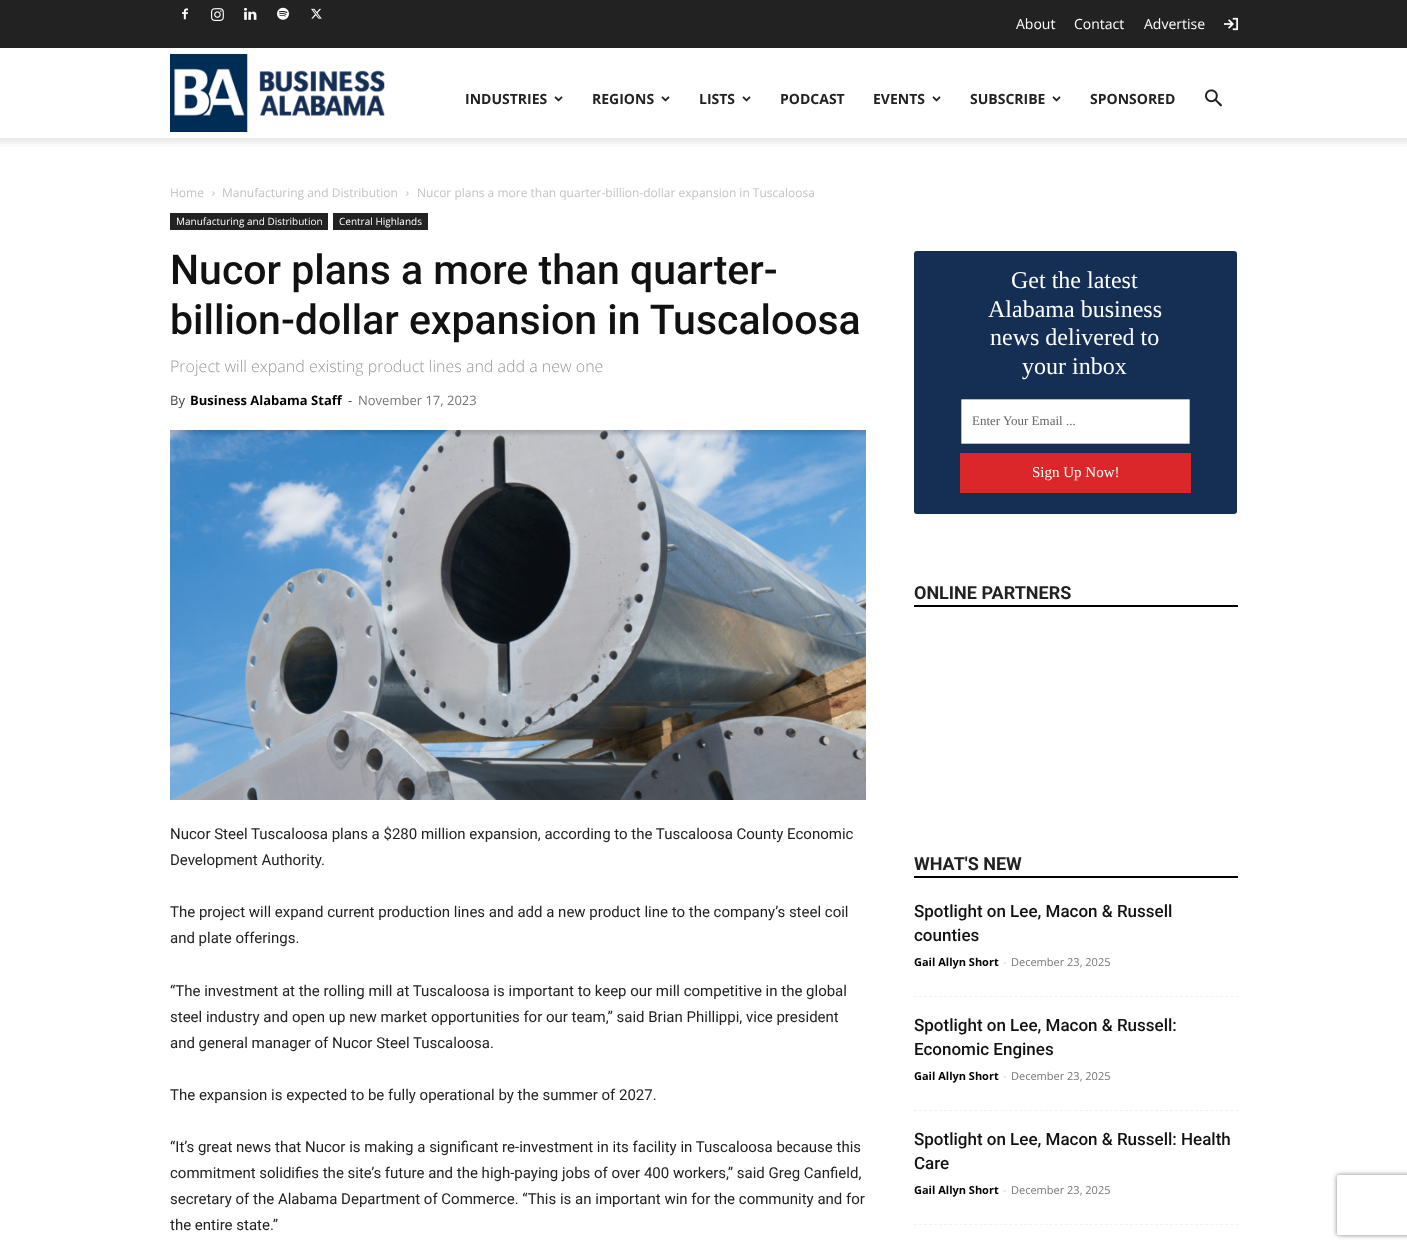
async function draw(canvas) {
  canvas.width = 1407
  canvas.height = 1249
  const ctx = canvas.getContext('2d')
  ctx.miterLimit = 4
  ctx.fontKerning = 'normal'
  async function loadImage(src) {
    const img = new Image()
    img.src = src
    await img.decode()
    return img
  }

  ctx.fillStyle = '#fff'
  ctx.fillRect(0, 0, 1407, 1249)
  ctx.fillStyle = '#222'
  ctx.fillRect(0, 0, 1407, 48)
  ctx.drawImage(await loadImage('image0.png'), 182, 8, 6, 12)
  ctx.drawImage(await loadImage('image1.png'), 211, 8, 13, 13)
  ctx.drawImage(await loadImage('image2.png'), 244, 7, 13, 13)
  ctx.drawImage(await loadImage('image3.png'), 277, 7, 12, 13)
  ctx.drawImage(await loadImage('image4.png'), 311, 8, 11, 11)
  ctx.font = '14px Open Sans'
  ctx.fillStyle = '#fff'
  ctx.fillText('About', 1016, 29)
  ctx.fillText('Contact', 1074, 29)
  ctx.fillText('Advertise', 1144, 29)
  ctx.drawImage(await loadImage('image5.png'), 1224, 17, 14, 14)
  ctx.drawImage(await loadImage('image6.png'), 170, 54, 215, 78)
  ctx.font = 'bold 14px Open Sans'
  ctx.fillStyle = '#222'
  ctx.fillText('INDUSTRIES', 465, 104)
  ctx.drawImage(await loadImage('image7.png'), 554, 96, 9, 6)
  ctx.fillText('REGIONS', 592, 104)
  ctx.drawImage(await loadImage('image7.png'), 661, 96, 9, 6)
  ctx.fillText('LISTS', 699, 104)
  ctx.drawImage(await loadImage('image7.png'), 742, 96, 9, 6)
  ctx.fillText('PODCAST', 780, 104)
  ctx.fillText('EVENTS', 873, 104)
  ctx.drawImage(await loadImage('image7.png'), 932, 96, 9, 6)
  ctx.fillText('SUBSCRIBE', 970, 104)
  ctx.drawImage(await loadImage('image7.png'), 1052, 96, 9, 6)
  ctx.fillText('SPONSORED', 1090, 104)
  ctx.drawImage(await loadImage('image8.png'), 1205, 89, 17, 18)
  ctx.drawImage(await loadImage('image9.png'), 0, 138, 1407, 9)
  ctx.font = '12px Open Sans'
  ctx.fillStyle = '#c3c3c3'
  ctx.fillText('Home', 170, 197)
  ctx.drawImage(await loadImage('image10.png'), 212, 191, 3, 5)
  ctx.fillText('Manufacturing and Distribution', 222, 197)
  ctx.drawImage(await loadImage('image10.png'), 406, 191, 3, 5)
  ctx.fillText('Nucor plans a more than quarter-billion-dollar expansion in Tuscaloosa', 417, 197)
  ctx.fillStyle = '#222'
  ctx.fillRect(170, 213, 158, 17)
  ctx.font = '10px Open Sans'
  ctx.fillStyle = '#fff'
  ctx.fillText('Manufacturing and Distribution', 176, 225)
  ctx.fillStyle = '#222'
  ctx.fillRect(333, 213, 95, 17)
  ctx.fillStyle = '#fff'
  ctx.fillText('Central Highlands', 339, 225)
  ctx.font = '500 41px Roboto'
  ctx.fillStyle = '#111'
  ctx.fillText('Nucor plans a more than quarter-', 170, 284)
  ctx.fillText('billion-dollar expansion in Tuscaloosa', 170, 334)
  ctx.font = '300 16px Open Sans'
  ctx.fillStyle = '#999'
  ctx.fillText('Project will expand existing product lines and add a new one', 170, 372)
  ctx.font = '13px Open Sans'
  ctx.fillStyle = '#444'
  ctx.fillText('By', 170, 405)
  ctx.font = 'bold 13px Open Sans'
  ctx.fillStyle = '#000'
  ctx.fillText('Business Alabama Staff', 190, 405)
  ctx.font = '13px Open Sans'
  ctx.fillStyle = '#444'
  ctx.fillText('-', 348, 405)
  ctx.fillStyle = '#767676'
  ctx.fillText('November 17, 2023', 358, 405)
  ctx.drawImage(await loadImage('image11.png'), 170, 430, 696, 370)
  ctx.font = '15px Roboto'
  ctx.fillStyle = '#222'
  ctx.fillText('Nucor Steel Tuscaloosa plans a $280 million expansion, according to the Tuscaloosa County Economic', 170, 839)
  ctx.fillText('Development Authority.', 170, 865)
  ctx.fillText('The project will expand current production lines and add a new product line to the company’s steel coil', 170, 917)
  ctx.fillText('and plate offerings.', 170, 943)
  ctx.fillText('“The investment at the rolling mill at Tuscaloosa is important to keep our mill competitive in the global', 170, 996)
  ctx.fillText('steel industry and open up new market opportunities for our team,” said Brian Phillippi, vice president', 170, 1022)
  ctx.fillText('and general manager of Nucor Steel Tuscaloosa.', 170, 1048)
  ctx.fillText('The expansion is expected to be fully operational by the summer of 2027.', 170, 1100)
  ctx.fillText('“It’s great news that Nucor is making a significant re‐investment in its facility in Tuscaloosa because this', 170, 1152)
  ctx.fillText('commitment solidifies the site’s future and the high‐paying jobs of over 400 workers,” said Greg Canfield,', 170, 1178)
  ctx.fillText('secretary of the Alabama Department of Commerce. “This is an important win for the community and for', 170, 1204)
  ctx.fillText('the entire state.”', 170, 1230)
  ctx.fillStyle = '#152e54'
  ctx.beginPath()
  ctx.roundRect(914, 251, 323, 263, 3)
  ctx.fill()
  ctx.font = '24px Liberation Serif'
  ctx.fillStyle = '#fff'
  ctx.fillText('Get the latest', 1011, 288)
  ctx.fillText('Alabama business', 988, 317)
  ctx.fillText('news delivered to', 990, 345)
  ctx.fillText('your inbox', 1022, 374)
  ctx.beginPath()
  ctx.roundRect(961.5, 399.5, 228, 44, 0.5)
  ctx.fill()
  ctx.strokeStyle = '#bbb'
  ctx.stroke()
  ctx.font = '13px Liberation Serif'
  ctx.fillStyle = '#666'
  ctx.fillText('Enter Your Email ...', 972, 425)
  ctx.fillStyle = '#db272a'
  ctx.fillRect(960, 453, 231, 40)
  ctx.font = '15px Liberation Serif'
  ctx.fillStyle = '#fff'
  ctx.fillText('Sign Up Now!', 1032, 477)
  ctx.fillStyle = '#000'
  ctx.fillRect(914, 605, 324, 2)
  ctx.font = 'bold 18px Roboto'
  ctx.fillStyle = '#222'
  ctx.fillText('ONLINE PARTNERS', 914, 599)
  ctx.fillStyle = '#000'
  ctx.fillRect(914, 876, 324, 2)
  ctx.fillStyle = '#222'
  ctx.fillText('WHAT\'S NEW', 914, 870)
  ctx.beginPath()
  ctx.moveTo(914, 996.5)
  ctx.lineTo(1238, 996.5)
  ctx.strokeStyle = '#f2f2f2'
  ctx.setLineDash([3, 2.02])
  ctx.stroke()
  ctx.font = '500 17px Roboto'
  ctx.fillStyle = '#111'
  ctx.fillText('Spotlight on Lee, Macon & Russell', 914, 917)
  ctx.fillText('counties', 914, 941)
  ctx.font = 'bold 11px Open Sans'
  ctx.fillStyle = '#000'
  ctx.fillText('Gail Allyn Short', 914, 966)
  ctx.font = '11px Open Sans'
  ctx.fillStyle = '#ccc'
  ctx.fillText('-', 1003, 966)
  ctx.fillStyle = '#767676'
  ctx.fillText('December 23, 2025', 1011, 966)
  ctx.beginPath()
  ctx.moveTo(914, 1110.5)
  ctx.lineTo(1238, 1110.5)
  ctx.stroke()
  ctx.font = '500 17px Roboto'
  ctx.fillStyle = '#111'
  ctx.fillText('Spotlight on Lee, Macon & Russell:', 914, 1031)
  ctx.fillText('Economic Engines', 914, 1055)
  ctx.font = 'bold 11px Open Sans'
  ctx.fillStyle = '#000'
  ctx.fillText('Gail Allyn Short', 914, 1080)
  ctx.font = '11px Open Sans'
  ctx.fillStyle = '#ccc'
  ctx.fillText('-', 1003, 1080)
  ctx.fillStyle = '#767676'
  ctx.fillText('December 23, 2025', 1011, 1080)
  ctx.beginPath()
  ctx.moveTo(914, 1224.5)
  ctx.lineTo(1238, 1224.5)
  ctx.stroke()
  ctx.font = '500 17px Roboto'
  ctx.fillStyle = '#111'
  ctx.fillText('Spotlight on Lee, Macon & Russell: Health', 914, 1145)
  ctx.fillText('Care', 914, 1169)
  ctx.font = 'bold 11px Open Sans'
  ctx.fillStyle = '#000'
  ctx.fillText('Gail Allyn Short', 914, 1194)
  ctx.font = '11px Open Sans'
  ctx.fillStyle = '#ccc'
  ctx.fillText('-', 1003, 1194)
  ctx.fillStyle = '#767676'
  ctx.fillText('December 23, 2025', 1011, 1194)
  ctx.save()
  ctx.beginPath()
  ctx.moveTo(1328, 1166)
  ctx.lineTo(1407, 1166)
  ctx.lineTo(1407, 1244)
  ctx.lineTo(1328, 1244)
  ctx.closePath()
  ctx.moveTo(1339, 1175)
  ctx.lineTo(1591, 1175)
  ctx.bezierCurveTo(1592, 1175, 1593, 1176, 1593, 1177)
  ctx.lineTo(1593, 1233)
  ctx.bezierCurveTo(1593, 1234, 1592, 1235, 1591, 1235)
  ctx.lineTo(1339, 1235)
  ctx.bezierCurveTo(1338, 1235, 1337, 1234, 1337, 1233)
  ctx.lineTo(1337, 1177)
  ctx.bezierCurveTo(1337, 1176, 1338, 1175, 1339, 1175)
  ctx.closePath()
  ctx.clip('evenodd')
  ctx.fillStyle = '#808080'
  ctx.filter = 'blur(2.5px)'
  ctx.beginPath()
  ctx.roundRect(1337, 1175, 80, 60, 2)
  ctx.fill()
  ctx.filter = 'none'
  ctx.restore()
}

draw(document.querySelector('canvas'))
